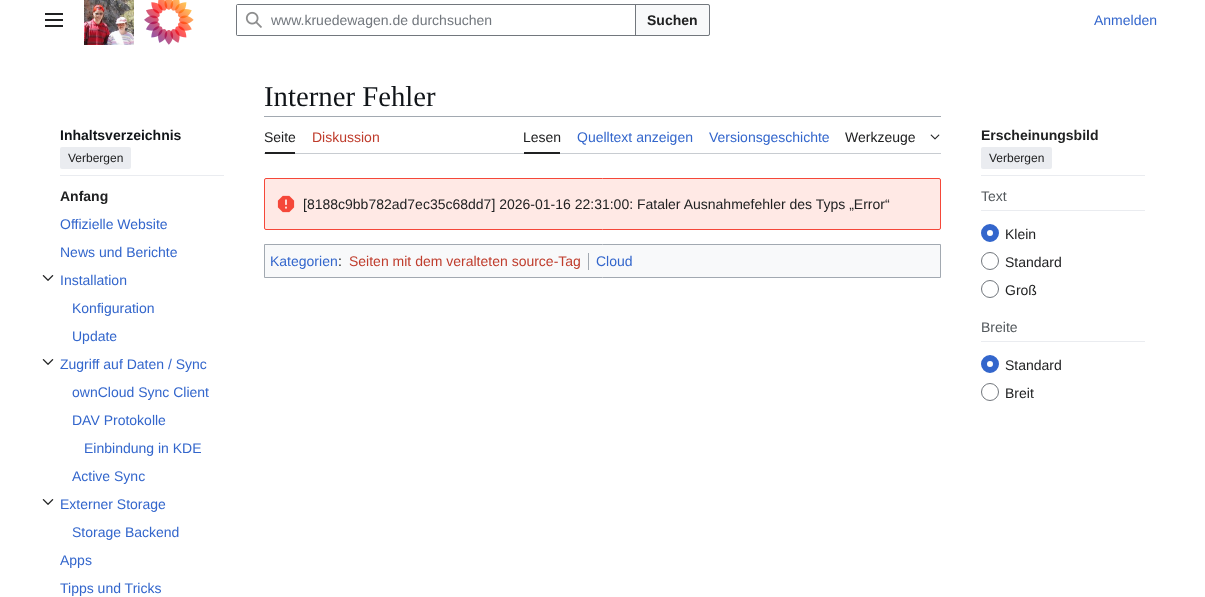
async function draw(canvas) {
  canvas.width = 1205
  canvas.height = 597
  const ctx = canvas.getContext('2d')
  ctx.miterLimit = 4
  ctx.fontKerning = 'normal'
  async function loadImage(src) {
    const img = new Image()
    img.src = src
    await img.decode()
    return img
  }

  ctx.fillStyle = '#fff'
  ctx.fillRect(0, 0, 1205, 597)
  ctx.drawImage(await loadImage('image0.png'), 45, 13, 18, 14)
  ctx.drawImage(await loadImage('image1.png'), 84, 0, 50, 45)
  ctx.drawImage(await loadImage('image2.png'), 144, 0, 50, 45)
  ctx.beginPath()
  ctx.roundRect(236.5, 4.5, 473, 31, 1.5)
  ctx.strokeStyle = '#a2a9b1'
  ctx.stroke()
  ctx.fillStyle = '#f8f9fa'
  ctx.beginPath()
  ctx.roundRect(635.5, 4.5, 74, 31, [0, 1.5, 1.5, 0])
  ctx.fill()
  ctx.strokeStyle = '#72777d'
  ctx.stroke()
  ctx.fillStyle = '#fff'
  ctx.beginPath()
  ctx.roundRect(236, 4, 400, 32, [2, 0, 0, 2])
  ctx.fill()
  ctx.fillStyle = '#72777d'
  ctx.beginPath()
  ctx.moveTo(238, 4)
  ctx.bezierCurveTo(237, 4, 236, 5, 236, 6)
  ctx.lineTo(236, 34)
  ctx.bezierCurveTo(236, 35, 237, 36, 238, 36)
  ctx.lineTo(636, 36)
  ctx.lineTo(636, 4)
  ctx.closePath()
  ctx.moveTo(237, 5)
  ctx.lineTo(237, 35)
  ctx.lineTo(635, 35)
  ctx.lineTo(635, 5)
  ctx.closePath()
  ctx.fill('evenodd')
  ctx.drawImage(await loadImage('image3.png'), 245, 11, 17, 17)
  ctx.font = '14px Liberation Sans'
  ctx.fillText('www.kruedewagen.de durchsuchen', 271, 25)
  ctx.font = 'bold 14px Liberation Sans'
  ctx.fillStyle = '#202122'
  ctx.fillText('Suchen', 647, 25)
  ctx.font = '14px Liberation Sans'
  ctx.fillStyle = '#36c'
  ctx.fillText('Anmelden', 1094, 25)
  ctx.fillStyle = '#eaecf0'
  ctx.fillRect(60, 175, 164, 1)
  ctx.font = 'bold 14px Liberation Sans'
  ctx.fillStyle = '#101418'
  ctx.fillText('Inhaltsverzeichnis', 60, 140)
  ctx.fillStyle = '#eaecf0'
  ctx.beginPath()
  ctx.roundRect(60, 147, 71, 22, 2)
  ctx.fill()
  ctx.font = '12px Liberation Sans'
  ctx.fillStyle = '#202122'
  ctx.fillText('Verbergen', 68, 162)
  ctx.font = 'bold 14px Liberation Sans'
  ctx.fillText('Anfang', 60, 201)
  ctx.font = '14px Liberation Sans'
  ctx.fillStyle = '#36c'
  ctx.fillText('Offizielle Website', 60, 229)
  ctx.fillText('News und Berichte', 60, 257)
  ctx.drawImage(await loadImage('image4.png'), 42, 275, 12, 6)
  ctx.fillText('Installation', 60, 285)
  ctx.fillText('Konfiguration', 72, 313)
  ctx.fillText('Update', 72, 341)
  ctx.drawImage(await loadImage('image4.png'), 42, 359, 12, 6)
  ctx.fillText('Zugriff auf Daten / Sync', 60, 369)
  ctx.fillText('ownCloud Sync Client', 72, 397)
  ctx.fillText('DAV Protokolle', 72, 425)
  ctx.fillText('Einbindung in KDE', 84, 453)
  ctx.fillText('Active Sync', 72, 481)
  ctx.drawImage(await loadImage('image4.png'), 42, 499, 12, 6)
  ctx.fillText('Externer Storage', 60, 509)
  ctx.fillText('Storage Backend', 72, 537)
  ctx.fillText('Apps', 60, 565)
  ctx.fillText('Tipps und Tricks', 60, 593)
  ctx.font = '28.75px Liberation Serif'
  ctx.fillStyle = '#101418'
  ctx.fillText('Interner Fehler', 264, 106)
  ctx.fillStyle = '#a2a9b1'
  ctx.fillRect(264, 116, 677, 1)
  ctx.fillStyle = '#c8ccd1'
  ctx.fillRect(264, 153, 677, 1)
  ctx.fillStyle = '#202122'
  ctx.fillRect(265, 152, 30, 2)
  ctx.font = '14px Liberation Sans'
  ctx.fillText('Seite', 264, 142)
  ctx.fillStyle = '#bf3c2c'
  ctx.fillText('Diskussion', 312, 142)
  ctx.fillStyle = '#202122'
  ctx.fillRect(524, 152, 36, 2)
  ctx.fillText('Lesen', 523, 142)
  ctx.fillStyle = '#36c'
  ctx.fillText('Quelltext anzeigen', 577, 142)
  ctx.fillText('Versionsgeschichte', 709, 142)
  ctx.fillStyle = '#202122'
  ctx.fillText('Werkzeuge', 845, 142)
  ctx.drawImage(await loadImage('image5.png'), 930, 134, 10, 6)
  ctx.fillStyle = '#eaecf0'
  ctx.fillRect(981, 175, 164, 1)
  ctx.font = 'bold 14px Liberation Sans'
  ctx.fillStyle = '#202122'
  ctx.fillText('Erscheinungsbild', 981, 140)
  ctx.fillStyle = '#eaecf0'
  ctx.beginPath()
  ctx.roundRect(981, 147, 71, 22, 2)
  ctx.fill()
  ctx.font = '12px Liberation Sans'
  ctx.fillStyle = '#202122'
  ctx.fillText('Verbergen', 989, 162)
  ctx.fillStyle = '#eaecf0'
  ctx.fillRect(981, 210, 164, 1)
  ctx.font = '14px Liberation Sans'
  ctx.fillStyle = '#54595d'
  ctx.fillText('Text', 981, 201)
  ctx.beginPath()
  ctx.arc(990, 233, 6, 0, 2 * Math.PI)
  ctx.strokeStyle = '#36c'
  ctx.lineWidth = 6
  ctx.stroke()
  ctx.fillStyle = '#202122'
  ctx.fillText('Klein', 1005, 239)
  ctx.beginPath()
  ctx.arc(990, 261, 8.5, 0, 2 * Math.PI)
  ctx.strokeStyle = '#72777d'
  ctx.lineWidth = 1
  ctx.stroke()
  ctx.fillText('Standard', 1005, 267)
  ctx.beginPath()
  ctx.arc(990, 289, 8.5, 0, 2 * Math.PI)
  ctx.stroke()
  ctx.fillText('Groß', 1005, 295)
  ctx.fillStyle = '#eaecf0'
  ctx.fillRect(981, 341, 164, 1)
  ctx.fillStyle = '#54595d'
  ctx.fillText('Breite', 981, 332)
  ctx.beginPath()
  ctx.arc(990, 364, 6, 0, 2 * Math.PI)
  ctx.strokeStyle = '#36c'
  ctx.lineWidth = 6
  ctx.stroke()
  ctx.fillStyle = '#202122'
  ctx.fillText('Standard', 1005, 370)
  ctx.beginPath()
  ctx.arc(990, 392, 8.5, 0, 2 * Math.PI)
  ctx.strokeStyle = '#72777d'
  ctx.lineWidth = 1
  ctx.stroke()
  ctx.fillText('Breit', 1005, 398)
  ctx.fillStyle = '#ffe9e5'
  ctx.beginPath()
  ctx.roundRect(264.5, 178.5, 676, 51, 1.5)
  ctx.fill()
  ctx.strokeStyle = '#f54739'
  ctx.stroke()
  ctx.drawImage(await loadImage('image6.png'), 277, 195, 18, 18)
  ctx.fillStyle = '#202122'
  ctx.fillText('[8188c9bb782ad7ec35c68dd7] 2026-01-16 22:31:00: Fataler Ausnahmefehler des Typs „Error“', 303, 209)
  ctx.fillStyle = '#f8f9fa'
  ctx.beginPath()
  ctx.rect(264.5, 244.5, 676, 33)
  ctx.fill()
  ctx.strokeStyle = '#a2a9b1'
  ctx.stroke()
  ctx.fillStyle = '#36c'
  ctx.fillText('Kategorien', 270, 266)
  ctx.fillStyle = '#202122'
  ctx.fillText(':', 338, 266)
  ctx.fillStyle = '#bf3c2c'
  ctx.fillText('Seiten mit dem veralteten source-Tag', 349, 266)
  ctx.fillStyle = '#a2a9b1'
  ctx.fillRect(588, 253, 1, 17)
  ctx.fillStyle = '#36c'
  ctx.fillText('Cloud', 596, 266)
}

draw(document.querySelector('canvas'))
